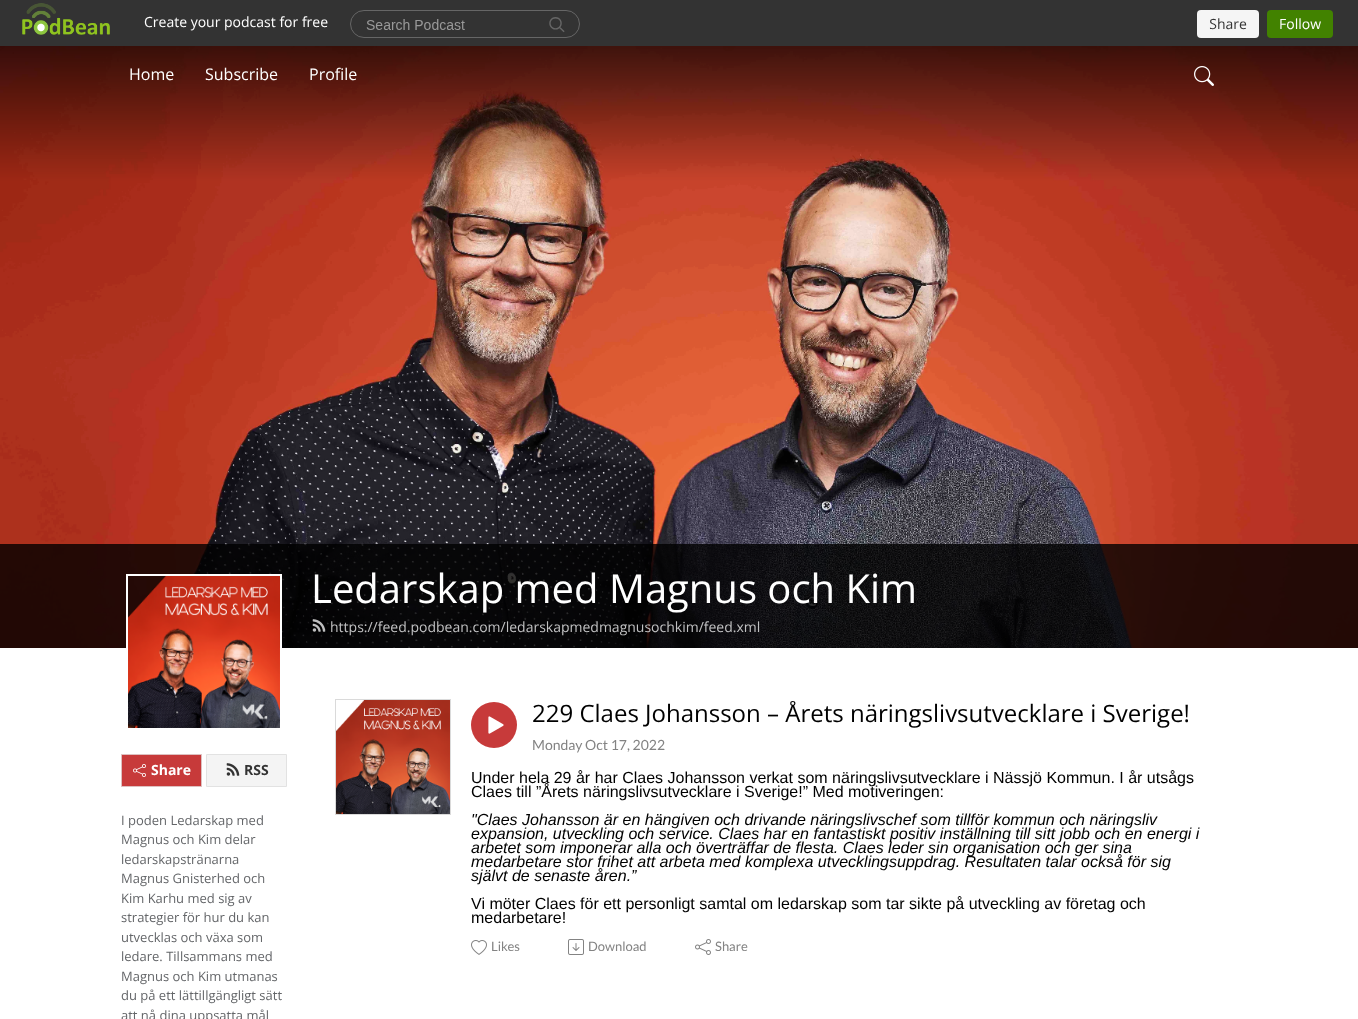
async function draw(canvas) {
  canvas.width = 1358
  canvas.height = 1019
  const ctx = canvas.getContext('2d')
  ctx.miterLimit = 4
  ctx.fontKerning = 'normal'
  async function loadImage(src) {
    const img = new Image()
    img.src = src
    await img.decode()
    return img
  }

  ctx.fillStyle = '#fff'
  ctx.fillRect(0, 0, 1358, 1019)
  ctx.fillStyle = '#333'
  ctx.fillRect(0, 0, 1358, 46)
  ctx.drawImage(await loadImage('image0.png'), 22, 3, 1311, 35)
  ctx.drawImage(await loadImage('image2.png'), 0, 46, 1358, 602)
  ctx.font = '16px Open Sans'
  ctx.fillStyle = '#fff'
  ctx.fillText('Home', 129, 80)
  ctx.fillText('Subscribe', 205, 80)
  ctx.fillText('Profile', 309, 80)
  ctx.drawImage(await loadImage('image1.png'), 1194, 66, 20, 20)
  ctx.fillStyle = '#000000cc'
  ctx.fillRect(0, 544, 1358, 104)
  ctx.font = '40px Open Sans'
  ctx.fillStyle = '#fff'
  ctx.fillText('Ledarskap med Magnus och Kim', 311, 603)
  ctx.drawImage(await loadImage('image3.png'), 312, 619, 14, 13)
  ctx.font = '14px Open Sans'
  ctx.fillStyle = '#c1c1c2'
  ctx.fillText('https://feed.podbean.com/ledarskapmedmagnusochkim/feed.xml', 330, 632)
  ctx.strokeStyle = '#fff'
  ctx.lineWidth = 2
  ctx.strokeRect(127, 575, 154, 154)
  ctx.drawImage(await loadImage('image4.png'), 128, 576, 152, 152)
  ctx.fillStyle = '#c73a3a'
  ctx.beginPath()
  ctx.rect(121.5, 754.5, 80, 32)
  ctx.fill()
  ctx.strokeStyle = '#ddc0c0'
  ctx.lineWidth = 1
  ctx.stroke()
  ctx.drawImage(await loadImage('image5.png'), 133, 764, 13, 13)
  ctx.font = 'bold 14px Open Sans'
  ctx.fillStyle = '#fff'
  ctx.fillText('Share', 151, 775)
  ctx.fillStyle = '#f4f4f4'
  ctx.beginPath()
  ctx.rect(206.5, 754.5, 80, 32)
  ctx.fill()
  ctx.strokeStyle = '#e2e2e2'
  ctx.stroke()
  ctx.drawImage(await loadImage('image6.png'), 226, 763, 14, 13)
  ctx.fillStyle = '#333'
  ctx.fillText('RSS', 244, 775)
  ctx.font = '13px Open Sans'
  ctx.fillStyle = '#646669'
  ctx.fillText('I poden Ledarskap med', 121, 825)
  ctx.fillText('Magnus och Kim delar', 121, 844)
  ctx.fillText('ledarskapstränarna', 121, 864)
  ctx.fillText('Magnus Gnisterhed och', 121, 883)
  ctx.fillText('Kim Karhu med sig av', 121, 903)
  ctx.fillText('strategier för hur du kan', 121, 922)
  ctx.fillText('utvecklas och växa som', 121, 942)
  ctx.fillText('ledare. Tillsammans med', 121, 961)
  ctx.fillText('Magnus och Kim utmanas', 121, 981)
  ctx.fillText('du på ett lättillgängligt sätt', 121, 1000)
  ctx.fillText('att nå dina uppsatta mål', 121, 1020)
  ctx.strokeStyle = '#dadada'
  ctx.strokeRect(335.5, 699.5, 115, 115)
  ctx.drawImage(await loadImage('image7.png'), 336, 700, 114, 114)
  ctx.fillStyle = '#c73a3a'
  ctx.beginPath()
  ctx.arc(494, 725, 23, 0, 2 * Math.PI)
  ctx.fill()
  ctx.drawImage(await loadImage('image8.png'), 488, 716, 16, 18)
  ctx.font = '24px Open Sans'
  ctx.fillStyle = '#000'
  ctx.fillText('229 Claes Johansson – Årets näringslivsutvecklare i Sverige!', 532, 722)
  ctx.font = '14px Lato'
  ctx.fillStyle = '#838383'
  ctx.fillText('Monday Oct 17, 2022', 532, 750)
  ctx.font = '16px Liberation Sans'
  ctx.fillStyle = '#000'
  ctx.fillText('Under hela 29 år har Claes Johansson verkat som näringslivsutvecklare i Nässjö Kommun. I år utsågs', 471, 783)
  ctx.fillText('Claes till ”Årets näringslivsutvecklare i Sverige!” Med motiveringen:', 471, 797)
  ctx.font = 'italic 16px Liberation Sans'
  ctx.fillText('"Claes Johansson är en hängiven och drivande näringslivschef som tillför kommun och näringsliv', 471, 825)
  ctx.fillText('expansion, utveckling och service. Claes har en fantastiskt positiv inställning till sitt jobb och en energi i', 471, 839)
  ctx.fillText('arbetet som imponerar alla och överträffar de flesta. Claes leder sin organisation och ger sina', 471, 853)
  ctx.fillText('medarbetare stor frihet att arbeta med komplexa utvecklingsuppdrag. Resultaten talar också för sig', 471, 867)
  ctx.fillText('självt de senaste åren.”', 471, 881)
  ctx.font = '16px Liberation Sans'
  ctx.fillText('Vi möter Claes för ett personligt samtal om ledarskap som tar sikte på utveckling av företag och', 471, 909)
  ctx.fillText('medarbetare!', 471, 923)
  ctx.drawImage(await loadImage('image9.png'), 471, 940, 16, 15)
  ctx.font = '13px Lato'
  ctx.fillStyle = '#838383'
  ctx.fillText('Likes', 491, 951)
  ctx.drawImage(await loadImage('image10.png'), 568, 939, 16, 16)
  ctx.fillText('Download', 588, 951)
  ctx.drawImage(await loadImage('image11.png'), 695, 939, 16, 16)
  ctx.fillText('Share', 715, 951)
}

draw(document.querySelector('canvas'))
